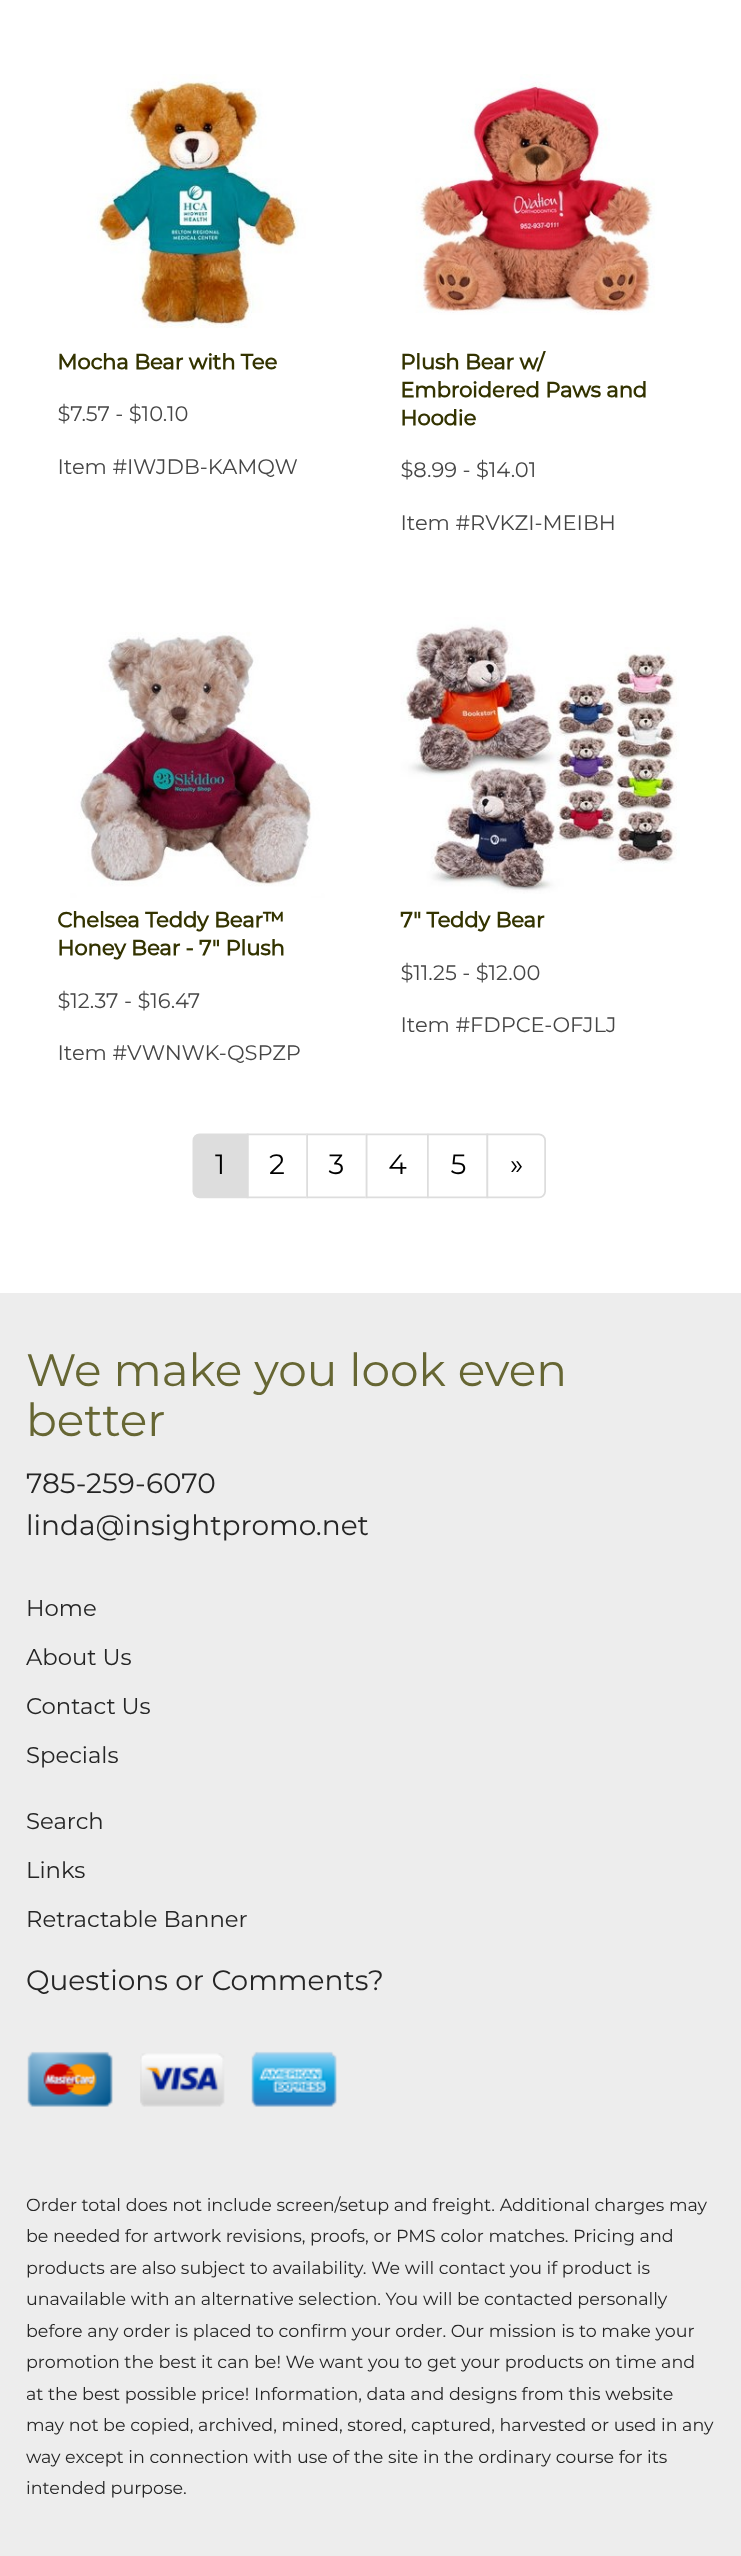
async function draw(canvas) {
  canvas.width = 741
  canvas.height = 2556
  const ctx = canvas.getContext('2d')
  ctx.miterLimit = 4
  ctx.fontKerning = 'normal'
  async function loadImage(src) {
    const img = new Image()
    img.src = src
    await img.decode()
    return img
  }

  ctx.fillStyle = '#ededed'
  ctx.fillRect(0, 0, 741, 2556)
  ctx.fillStyle = '#fff'
  ctx.fillRect(0, 0, 741, 1293)
  ctx.drawImage(await loadImage('image0.png'), 58, 74, 622, 1125)
  ctx.font = '100 45.5px Montserrat'
  ctx.fillStyle = '#663'
  ctx.fillText('We make you look even', 26, 1386)
  ctx.fillText('better', 26, 1436)
  ctx.font = '100 28px Montserrat'
  ctx.fillStyle = '#252525'
  ctx.fillText('785-259-6070', 26, 1493)
  ctx.fillText('linda@insightpromo.net', 26, 1535)
  ctx.font = '100 22.75px Montserrat'
  ctx.fillText('Home', 26, 1616)
  ctx.fillText('About Us', 26, 1665)
  ctx.fillText('Contact Us', 26, 1714)
  ctx.fillText('Specials', 26, 1763)
  ctx.fillText('Search', 26, 1829)
  ctx.fillText('Links', 26, 1878)
  ctx.fillText('Retractable Banner', 26, 1927)
  ctx.font = '100 28px Montserrat'
  ctx.fillText('Questions or Comments?', 26, 1990)
  ctx.drawImage(await loadImage('image1.png'), 27, 2051, 86, 56)
  ctx.drawImage(await loadImage('image2.png'), 140, 2053, 85, 54)
  ctx.drawImage(await loadImage('image3.png'), 251, 2051, 86, 56)
  ctx.font = '100 17.5px Montserrat'
  ctx.fillText('Order total does not include screen/setup and freight. Additional charges may', 26, 2211)
  ctx.fillText('be needed for artwork revisions, proofs, or PMS color matches. Pricing and', 26, 2242)
  ctx.fillText('products are also subject to availability. We will contact you if product is', 26, 2274)
  ctx.fillText('unavailable with an alternative selection. You will be contacted personally', 26, 2305)
  ctx.fillText('before any order is placed to confirm your order. Our mission is to make your', 26, 2337)
  ctx.fillText('promotion the best it can be! We want you to get your products on time and', 26, 2368)
  ctx.fillText('at the best possible price! Information, data and designs from this website', 26, 2400)
  ctx.fillText('may not be copied, archived, mined, stored, captured, harvested or used in any', 26, 2431)
  ctx.fillText('way except in connection with use of the site in the ordinary course for its', 26, 2463)
  ctx.fillText('intended purpose.', 26, 2494)
}

draw(document.querySelector('canvas'))
